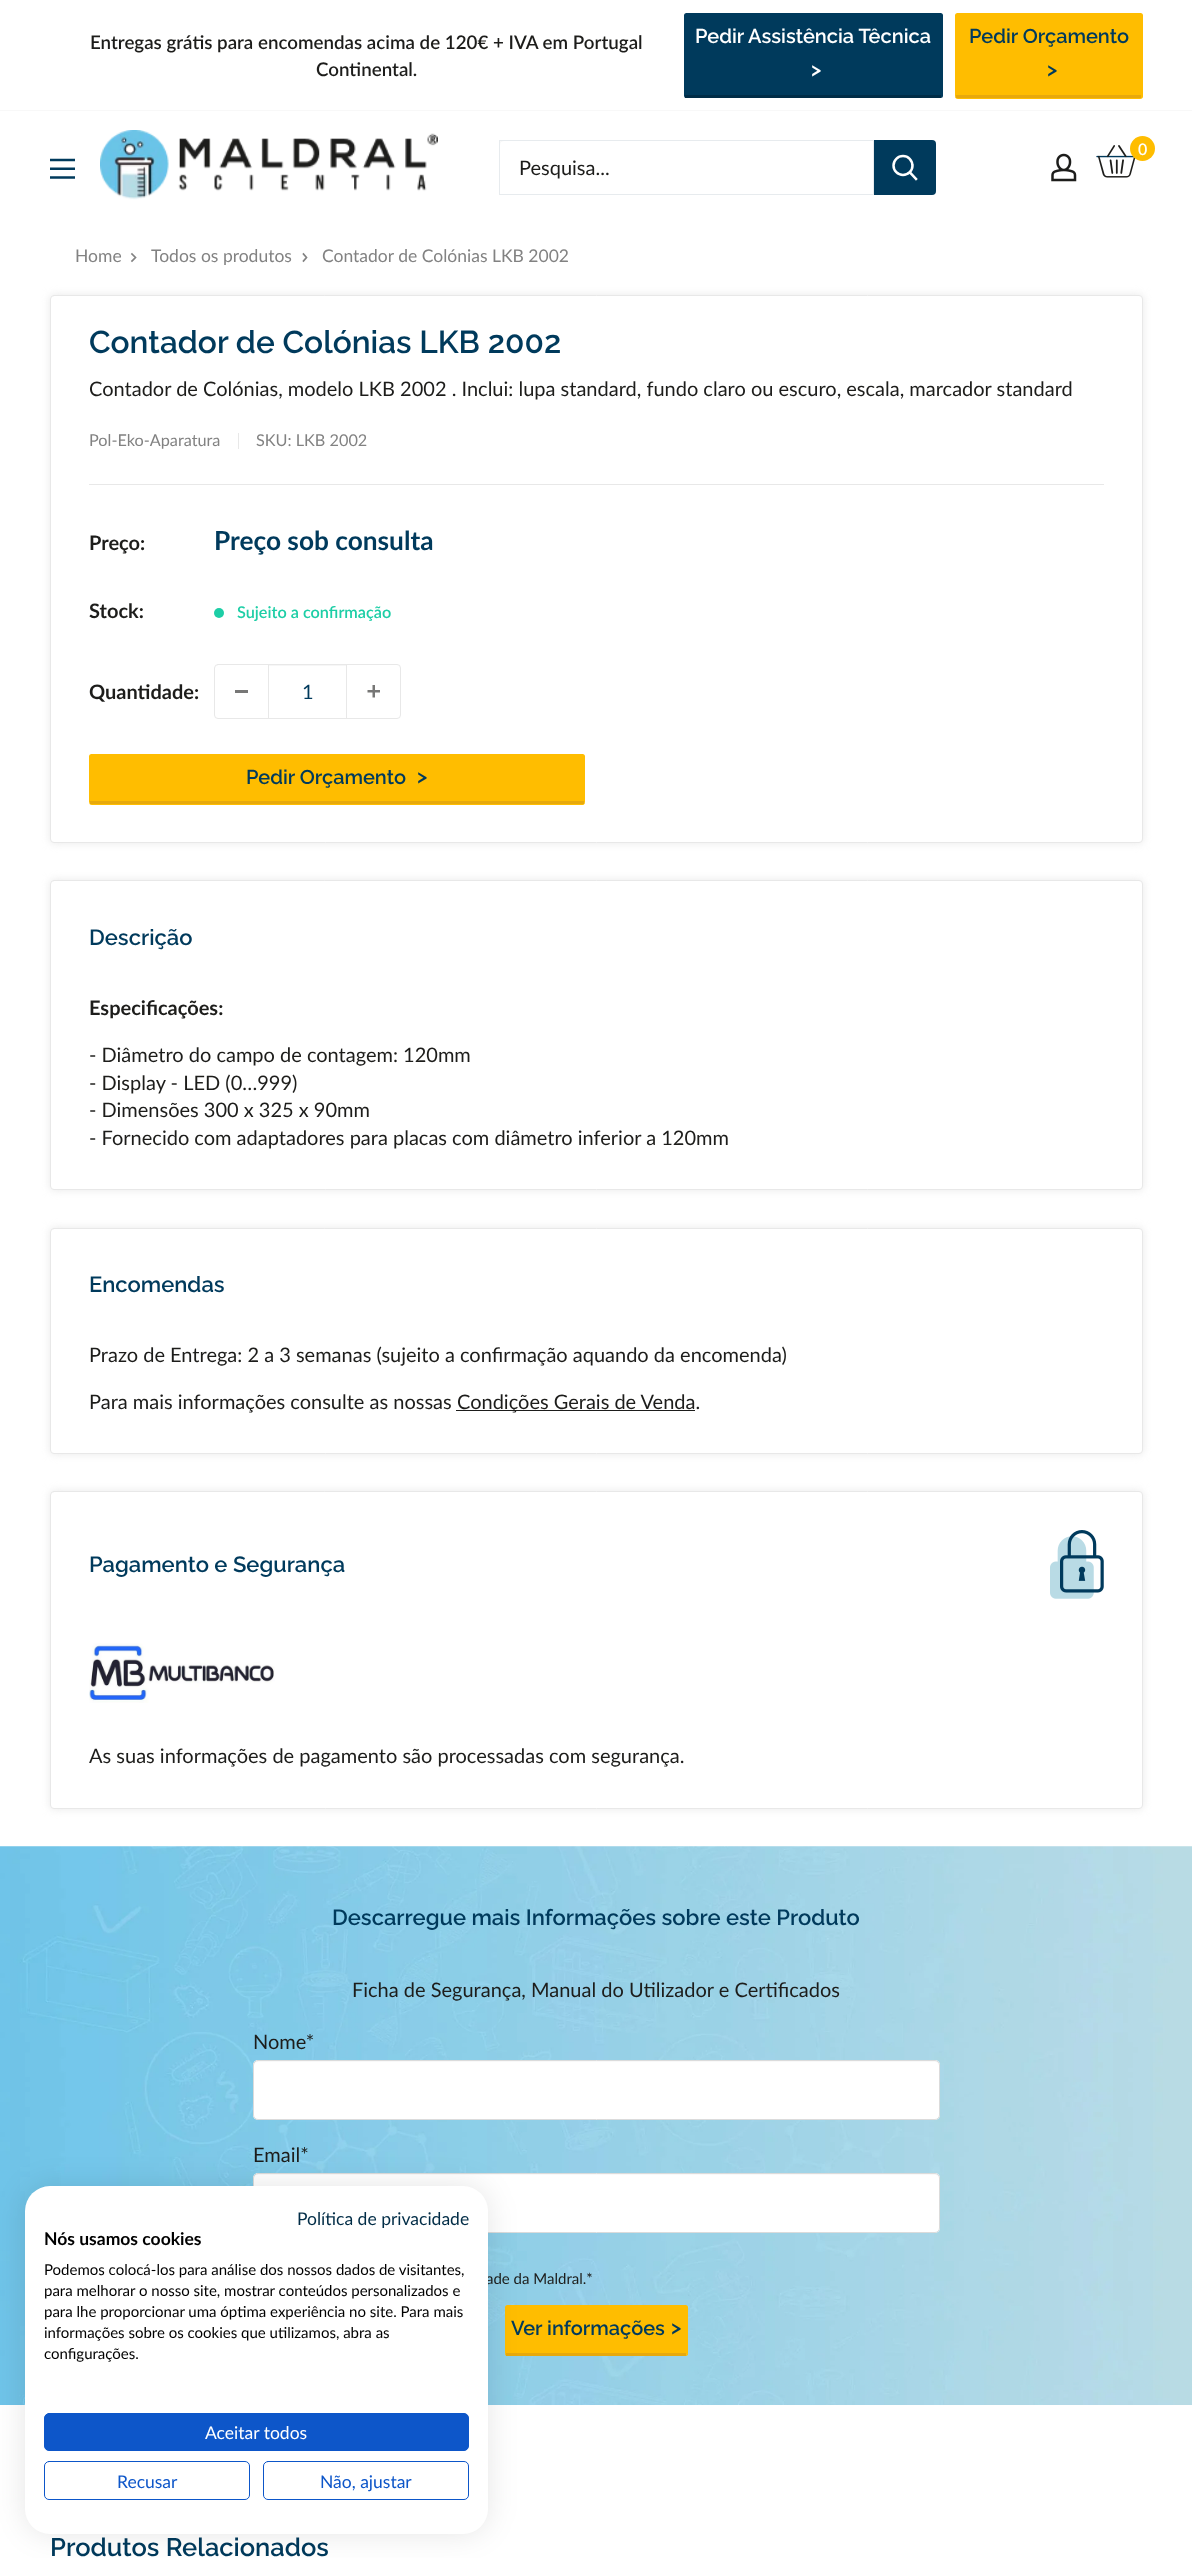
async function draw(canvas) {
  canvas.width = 1192
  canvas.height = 2558
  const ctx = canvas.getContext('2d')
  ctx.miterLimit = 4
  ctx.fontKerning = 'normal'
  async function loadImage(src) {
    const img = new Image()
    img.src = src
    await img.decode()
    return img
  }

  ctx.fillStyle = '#fff'
  ctx.fillRect(0, 0, 1192, 2558)
  ctx.fillStyle = '#f8f8f8'
  ctx.fillRect(0, 110, 1192, 1)
  ctx.font = '600 18.75px Lato'
  ctx.fillStyle = '#1d1d1b'
  ctx.fillText('Entregas grátis para encomendas acima de 120€ + IVA em Portugal', 90, 49)
  ctx.fillText('Continental.', 316, 76)
  ctx.fillStyle = '#003a5c'
  ctx.beginPath()
  ctx.roundRect(684, 13, 259, 85, 2.5)
  ctx.fill()
  ctx.fillStyle = '#002c46'
  ctx.fillRect(685, 95, 256, 3)
  ctx.font = '600 20px Raleway'
  ctx.fillStyle = '#fff'
  ctx.fillText('Pedir Assistência Têcnica', 695, 43)
  ctx.fillText('>', 811, 76)
  ctx.fillStyle = '#ffbd00'
  ctx.beginPath()
  ctx.moveTo(955, 95)
  ctx.lineTo(955, 96)
  ctx.bezierCurveTo(955, 98, 956, 99, 958, 99)
  ctx.lineTo(1140, 99)
  ctx.bezierCurveTo(1142, 99, 1143, 98, 1143, 96)
  ctx.lineTo(1143, 16)
  ctx.lineTo(1143, 15)
  ctx.lineTo(1142, 95)
  ctx.bezierCurveTo(1142, 96, 1141, 98, 1140, 98)
  ctx.lineTo(958, 98)
  ctx.bezierCurveTo(956, 98, 955, 96, 955, 95)
  ctx.closePath()
  ctx.fill()
  ctx.beginPath()
  ctx.roundRect(955, 13, 188, 85, 2.5)
  ctx.fill()
  ctx.fillStyle = '#e7a90c'
  ctx.fillRect(956, 95, 185, 3)
  ctx.fillStyle = '#003a5c'
  ctx.fillText('Pedir Orçamento', 969, 43)
  ctx.fillText('>', 1047, 76)
  ctx.drawImage(await loadImage('image0.png'), 100, 130, 338, 70)
  ctx.drawImage(await loadImage('image1.png'), 1096, 145, 40, 33)
  ctx.fillStyle = '#ffbd00'
  ctx.beginPath()
  ctx.arc(1142.5, 148.5, 12.5, 0, 2 * Math.PI)
  ctx.fill()
  ctx.font = '600 16px Lato'
  ctx.fillStyle = '#fff'
  ctx.fillText('0', 1138, 155)
  ctx.drawImage(await loadImage('image2.png'), 1051, 153, 26, 29)
  ctx.drawImage(await loadImage('image3.png'), 50, 158, 25, 21)
  ctx.fillStyle = '#f8f8f8'
  ctx.beginPath()
  ctx.moveTo(500, 194)
  ctx.bezierCurveTo(501, 195, 502, 195, 503, 195)
  ctx.lineTo(932, 195)
  ctx.bezierCurveTo(934, 195, 936, 193, 936, 191)
  ctx.lineTo(936, 144)
  ctx.bezierCurveTo(936, 143, 936, 142, 935, 141)
  ctx.lineTo(935, 182)
  ctx.bezierCurveTo(935, 184, 937, 194, 931, 194)
  ctx.closePath()
  ctx.fill()
  ctx.beginPath()
  ctx.moveTo(504, 141)
  ctx.lineTo(935, 141)
  ctx.bezierCurveTo(934, 140, 933, 140, 932, 140)
  ctx.lineTo(503, 140)
  ctx.bezierCurveTo(501, 140, 499, 142, 499, 144)
  ctx.lineTo(499, 191)
  ctx.bezierCurveTo(499, 192, 500, 193, 500, 194)
  ctx.lineTo(500, 153)
  ctx.bezierCurveTo(500, 150, 498, 141, 504, 141)
  ctx.closePath()
  ctx.fill()
  ctx.strokeStyle = '#e7ebee'
  ctx.strokeRect(499.5, 140.5, 374, 54)
  ctx.font = '20px Lato'
  ctx.fillStyle = '#1d1d1b'
  ctx.fillText('Pesquisa...', 519, 175)
  ctx.fillStyle = '#003a5c'
  ctx.beginPath()
  ctx.roundRect(874, 140, 62, 55, [0, 4, 4, 0])
  ctx.fill()
  ctx.beginPath()
  ctx.moveTo(916, 179)
  ctx.lineTo(910, 172.5)
  ctx.strokeStyle = '#fff'
  ctx.lineWidth = 2.5
  ctx.lineCap = 'square'
  ctx.stroke()
  ctx.beginPath()
  ctx.arc(903, 165.5, 9.5, 0, 2 * Math.PI)
  ctx.stroke()
  ctx.font = '17.5px Lato'
  ctx.fillStyle = '#828282'
  ctx.fillText('Home', 75, 262)
  ctx.beginPath()
  ctx.moveTo(132, 254)
  ctx.lineTo(135.5, 257.5)
  ctx.lineTo(132, 261)
  ctx.strokeStyle = '#828282'
  ctx.lineWidth = 1.7
  ctx.stroke()
  ctx.fillText('Todos os produtos', 151, 262)
  ctx.beginPath()
  ctx.moveTo(303.5, 254)
  ctx.lineTo(306.5, 257.5)
  ctx.lineTo(303.5, 261)
  ctx.stroke()
  ctx.fillText('Contador de Colónias LKB 2002', 322, 262)
  ctx.fillStyle = '#e8e8e8'
  ctx.filter = 'blur(4px)'
  ctx.beginPath()
  ctx.roundRect(50, 295, 1093, 548, 4)
  ctx.fill()
  ctx.filter = 'none'
  ctx.fillStyle = '#fff'
  ctx.beginPath()
  ctx.roundRect(50.5, 295.5, 1092, 547, 3.5)
  ctx.fill()
  ctx.strokeStyle = '#e8e8e8'
  ctx.lineWidth = 1
  ctx.stroke()
  ctx.font = '600 31.6px Raleway'
  ctx.fillStyle = '#003a5c'
  ctx.fillText('Contador de Colónias LKB 2002', 89, 353)
  ctx.font = '20px Lato'
  ctx.fillStyle = '#1d1d1b'
  ctx.fillText('Contador de Colónias, modelo LKB 2002 . Inclui: lupa standard, fundo claro ou escuro, escala, marcador standard', 89, 396)
  ctx.font = '16.25px Lato'
  ctx.fillStyle = '#828282'
  ctx.fillText('Pol-Eko-Aparatura', 89, 446)
  ctx.fillStyle = '#e8e8e8'
  ctx.fillRect(238, 433, 1, 16)
  ctx.fillStyle = '#828282'
  ctx.fillText('SKU: LKB 2002', 256, 446)
  ctx.fillStyle = '#e8e8e8'
  ctx.fillRect(89, 484, 1015, 1)
  ctx.font = 'bold 20px Lato'
  ctx.fillStyle = '#1d1d1b'
  ctx.fillText('Preço:', 89, 550)
  ctx.font = 'bold 26.25px Lato'
  ctx.fillStyle = '#003a5c'
  ctx.fillText('Preço sob consulta', 214, 550)
  ctx.font = 'bold 20px Lato'
  ctx.fillStyle = '#1d1d1b'
  ctx.fillText('Stock:', 89, 618)
  ctx.fillStyle = '#1dcea6'
  ctx.beginPath()
  ctx.arc(219, 613, 5, 0, 2 * Math.PI)
  ctx.fill()
  ctx.font = '600 16.25px Lato'
  ctx.fillText('Sujeito a confirmação', 237, 618)
  ctx.font = 'bold 20px Lato'
  ctx.fillStyle = '#1d1d1b'
  ctx.fillText('Quantidade:', 89, 699)
  ctx.beginPath()
  ctx.roundRect(214.5, 664.5, 186, 54, 3.5)
  ctx.stroke()
  ctx.fillStyle = '#777776'
  ctx.fillRect(235, 690, 13, 3)
  ctx.fillStyle = '#f6f6f6'
  ctx.fillRect(269, 665, 77, 1)
  ctx.fillStyle = '#e8e8e8'
  ctx.fillRect(346, 665, 1, 53)
  ctx.fillRect(268, 665, 1, 53)
  ctx.font = '20px Lato'
  ctx.fillStyle = '#003a5c'
  ctx.fillText('1', 302, 699)
  ctx.drawImage(await loadImage('image4.png'), 367, 685, 13, 13)
  ctx.fillStyle = '#ffbd00'
  ctx.beginPath()
  ctx.moveTo(89, 802)
  ctx.bezierCurveTo(89, 804, 90, 805, 92, 805)
  ctx.lineTo(582, 805)
  ctx.bezierCurveTo(585, 805, 585, 803, 585, 801)
  ctx.bezierCurveTo(585, 803, 584, 804, 582, 804)
  ctx.lineTo(91, 804)
  ctx.bezierCurveTo(90, 804, 89, 803, 89, 802)
  ctx.closePath()
  ctx.fill()
  ctx.beginPath()
  ctx.roundRect(89, 754, 496, 50, 2.5)
  ctx.fill()
  ctx.fillStyle = '#e7a90c'
  ctx.fillRect(90, 801, 494, 3)
  ctx.font = '600 20px Raleway'
  ctx.fillStyle = '#003a5c'
  ctx.fillText('Pedir Orçamento', 246, 784)
  ctx.fillText('>', 417, 783)
  ctx.fillStyle = '#e8e8e8'
  ctx.filter = 'blur(4px)'
  ctx.beginPath()
  ctx.roundRect(50, 880, 1093, 310, 4)
  ctx.fill()
  ctx.filter = 'none'
  ctx.fillStyle = '#fff'
  ctx.beginPath()
  ctx.roundRect(50.5, 880.5, 1092, 309, 3.5)
  ctx.fill()
  ctx.stroke()
  ctx.font = '600 22px Raleway'
  ctx.fillStyle = '#003a5c'
  ctx.fillText('Descrição', 89, 945)
  ctx.font = 'bold 20px Lato'
  ctx.fillStyle = '#1d1d1b'
  ctx.fillText('Especificações:', 89, 1015)
  ctx.font = '20px Lato'
  ctx.fillText('- Diâmetro do campo de contagem: 120mm', 89, 1062)
  ctx.fillText('- Display - LED (0…999)', 89, 1090)
  ctx.fillText('- Dimensões 300 x 325 x 90mm', 89, 1117)
  ctx.fillText('- Fornecido com adaptadores para placas com diâmetro inferior a 120mm', 89, 1145)
  ctx.fillStyle = '#e8e8e8'
  ctx.filter = 'blur(4px)'
  ctx.beginPath()
  ctx.roundRect(50, 1228, 1093, 226, 4)
  ctx.fill()
  ctx.filter = 'none'
  ctx.fillStyle = '#fff'
  ctx.beginPath()
  ctx.roundRect(50.5, 1228.5, 1092, 225, 3.5)
  ctx.fill()
  ctx.stroke()
  ctx.font = '600 22px Raleway'
  ctx.fillStyle = '#003a5c'
  ctx.fillText('Encomendas', 89, 1292)
  ctx.font = '20px Lato'
  ctx.fillStyle = '#1d1d1b'
  ctx.fillText('Prazo de Entrega: 2 a 3 semanas (sujeito a confirmação aquando da encomenda)', 89, 1362)
  ctx.fillText('Para mais informações consulte as nossas', 89, 1409)
  ctx.fillRect(456, 1410, 239, 1)
  ctx.fillText('Condições Gerais de Venda.', 457, 1409)
  ctx.fillStyle = '#e8e8e8'
  ctx.filter = 'blur(4px)'
  ctx.beginPath()
  ctx.roundRect(50, 1491, 1093, 318, 4)
  ctx.fill()
  ctx.filter = 'none'
  ctx.fillStyle = '#fff'
  ctx.beginPath()
  ctx.roundRect(50.5, 1491.5, 1092, 317, 3.5)
  ctx.fill()
  ctx.stroke()
  ctx.font = '600 22px Raleway'
  ctx.fillStyle = '#003a5c'
  ctx.fillText('Pagamento e Segurança', 89, 1572)
  ctx.drawImage(await loadImage('image5.png'), 1050, 1530, 54, 69)
  ctx.drawImage(await loadImage('image6.png'), 89, 1643, 186, 60)
  ctx.font = '20px Lato'
  ctx.fillStyle = '#1d1d1b'
  ctx.fillText('As suas informações de pagamento são processadas com segurança.', 89, 1763)
  ctx.drawImage(await loadImage('image7.png'), 0, 1846, 1192, 559)
  ctx.font = '600 22px Raleway'
  ctx.fillStyle = '#003a5c'
  ctx.fillText('Descarregue mais Informações sobre este Produto', 332, 1925)
  ctx.font = '20px Lato'
  ctx.fillStyle = '#1d1d1b'
  ctx.fillText('Ficha de Segurança, Manual do Utilizador e Certificados', 352, 1997)
  ctx.fillText('Nome*', 253, 2049)
  ctx.fillStyle = '#fff'
  ctx.beginPath()
  ctx.roundRect(253, 2060, 687, 60, 5)
  ctx.fill()
  ctx.fillStyle = '#f9f9f9'
  ctx.beginPath()
  ctx.moveTo(258, 2062)
  ctx.lineTo(935, 2062)
  ctx.bezierCurveTo(937, 2062, 939, 2064, 939, 2066)
  ctx.bezierCurveTo(939, 2063, 938, 2061, 935, 2061)
  ctx.lineTo(258, 2061)
  ctx.lineTo(255, 2062)
  ctx.lineTo(254, 2063)
  ctx.lineTo(254, 2066)
  ctx.bezierCurveTo(254, 2064, 255, 2062, 258, 2062)
  ctx.closePath()
  ctx.fill()
  ctx.beginPath()
  ctx.roundRect(253.5, 2060.5, 686, 59, 4.5)
  ctx.strokeStyle = '#dbdbdb'
  ctx.stroke()
  ctx.fillStyle = '#1d1d1b'
  ctx.fillText('Email*', 253, 2162)
  ctx.fillStyle = '#fff'
  ctx.beginPath()
  ctx.roundRect(253, 2173, 687, 60, 5)
  ctx.fill()
  ctx.fillStyle = '#f9f9f9'
  ctx.beginPath()
  ctx.moveTo(258, 2175)
  ctx.lineTo(935, 2175)
  ctx.bezierCurveTo(937, 2175, 939, 2177, 939, 2179)
  ctx.bezierCurveTo(939, 2176, 938, 2174, 935, 2174)
  ctx.lineTo(258, 2174)
  ctx.lineTo(255, 2175)
  ctx.lineTo(254, 2176)
  ctx.lineTo(254, 2179)
  ctx.bezierCurveTo(254, 2177, 255, 2175, 258, 2175)
  ctx.closePath()
  ctx.fill()
  ctx.beginPath()
  ctx.roundRect(253.5, 2173.5, 686, 59, 4.5)
  ctx.stroke()
  ctx.font = '15px Lato'
  ctx.fillStyle = '#1d1d1b'
  ctx.fillText('ade da Maldral.*', 486, 2284)
  ctx.fillStyle = '#ffbd00'
  ctx.beginPath()
  ctx.moveTo(505, 2352)
  ctx.lineTo(505, 2354)
  ctx.bezierCurveTo(505, 2355, 506, 2356, 508, 2356)
  ctx.lineTo(686, 2356)
  ctx.bezierCurveTo(687, 2356, 688, 2355, 688, 2354)
  ctx.lineTo(688, 2308)
  ctx.lineTo(687, 2307)
  ctx.lineTo(688, 2352)
  ctx.bezierCurveTo(688, 2354, 686, 2355, 685, 2355)
  ctx.lineTo(508, 2355)
  ctx.bezierCurveTo(506, 2355, 505, 2354, 505, 2352)
  ctx.closePath()
  ctx.fill()
  ctx.beginPath()
  ctx.roundRect(505, 2305, 183, 50, 2.5)
  ctx.fill()
  ctx.fillStyle = '#e7a90c'
  ctx.fillRect(506, 2353, 180, 3)
  ctx.font = '600 20px Raleway'
  ctx.fillStyle = '#003a5c'
  ctx.fillText('Ver informações', 511, 2335)
  ctx.fillText('>', 671, 2334)
  ctx.font = '600 25.5px Raleway'
  ctx.fillText('Produtos Relacionados', 50, 2556)
  ctx.fillStyle = '#0000001a'
  ctx.filter = 'blur(15px)'
  ctx.beginPath()
  ctx.roundRect(25, 2186, 463, 348, 25)
  ctx.fill()
  ctx.filter = 'none'
  ctx.fillStyle = '#fff'
  ctx.beginPath()
  ctx.roundRect(25, 2186, 463, 348, 25)
  ctx.fill()
  ctx.font = '17.5px Lato'
  ctx.fillStyle = '#002c46'
  ctx.fillText('Política de privacidade', 297, 2225)
  ctx.font = 'bold 17.5px Lato'
  ctx.fillStyle = '#000'
  ctx.fillText('Nós usamos cookies', 44, 2245)
  ctx.font = '15px Lato'
  ctx.fillText('Podemos colocá-los para análise dos nossos dados de visitantes,', 44, 2275)
  ctx.fillText('para melhorar o nosso site, mostrar conteúdos personalizados e', 44, 2296)
  ctx.fillText('para lhe proporcionar uma óptima experiência no site. Para mais', 44, 2317)
  ctx.fillText('informações sobre os cookies que utilizamos, abra as', 44, 2338)
  ctx.fillText('configurações.', 44, 2359)
  ctx.fillStyle = '#0d56c9'
  ctx.beginPath()
  ctx.roundRect(44.5, 2413.5, 424, 37, 4.5)
  ctx.fill()
  ctx.strokeStyle = '#0d56c9'
  ctx.stroke()
  ctx.font = '17.5px Lato'
  ctx.fillStyle = '#fff'
  ctx.fillText('Aceitar todos', 205, 2439)
  ctx.beginPath()
  ctx.roundRect(44.5, 2461.5, 205, 38, 4.5)
  ctx.stroke()
  ctx.fillStyle = '#0d56c9'
  ctx.fillText('Recusar', 117, 2488)
  ctx.beginPath()
  ctx.roundRect(263.5, 2461.5, 205, 38, 4.5)
  ctx.stroke()
  ctx.fillText('Não, ajustar', 320, 2488)
}

draw(document.querySelector('canvas'))
